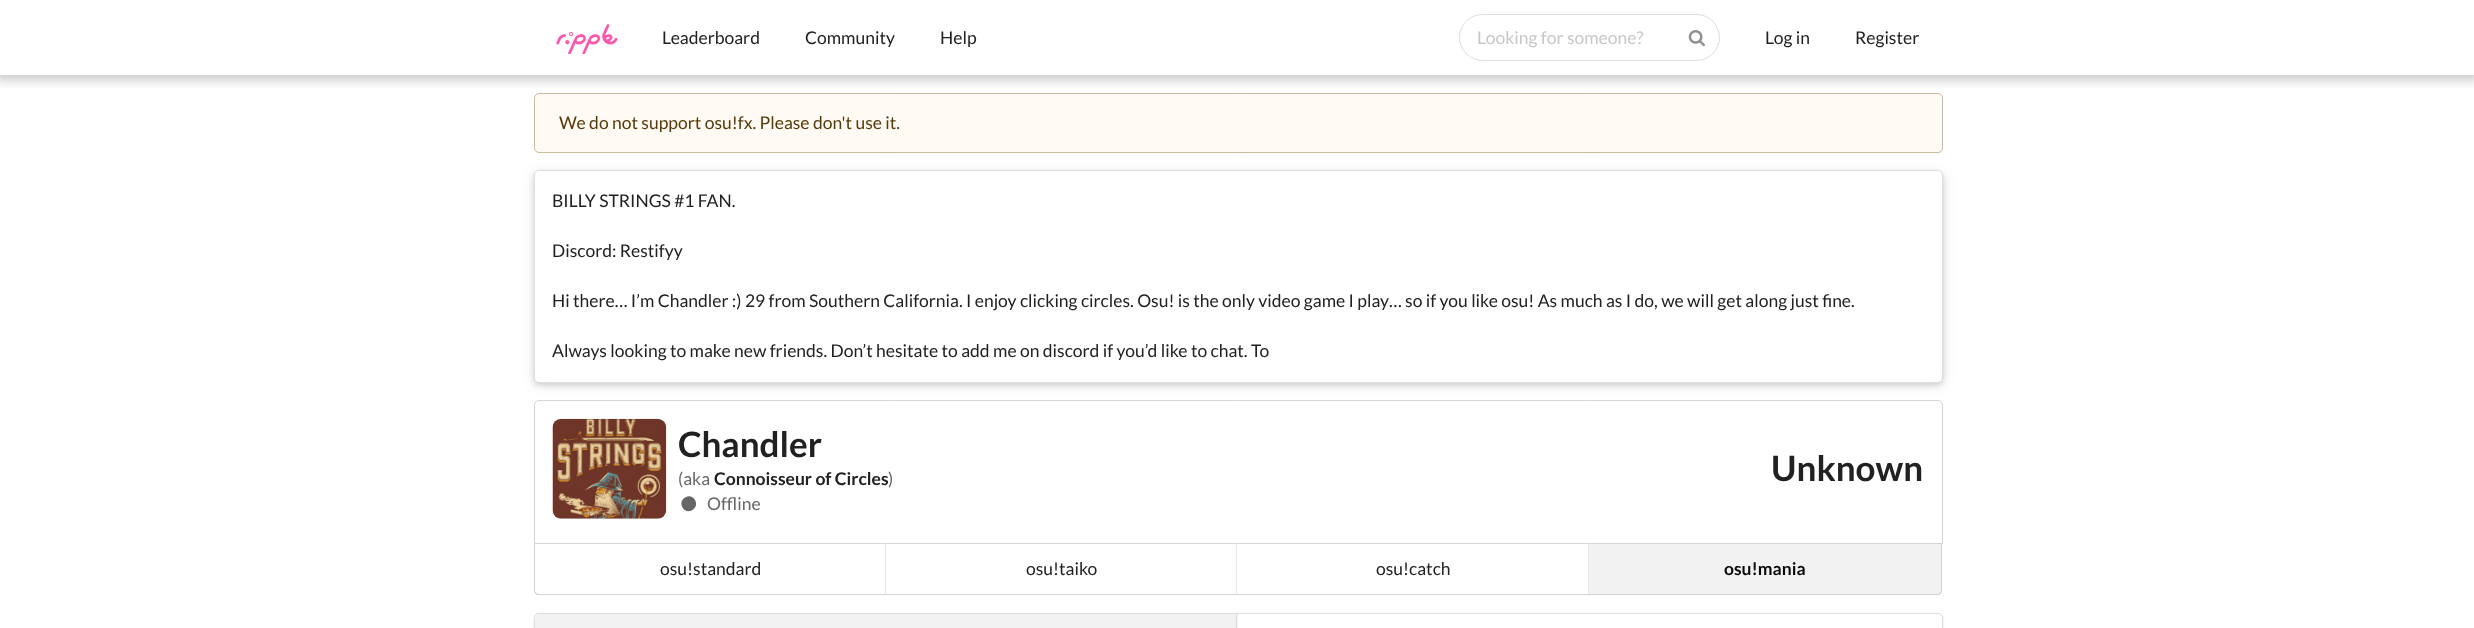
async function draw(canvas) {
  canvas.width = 2474
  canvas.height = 628
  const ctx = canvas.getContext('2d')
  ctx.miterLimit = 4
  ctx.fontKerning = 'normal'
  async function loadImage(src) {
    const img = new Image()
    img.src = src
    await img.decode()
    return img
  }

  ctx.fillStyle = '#fff'
  ctx.fillRect(0, 0, 2474, 628)
  ctx.save()
  ctx.beginPath()
  ctx.rect(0, 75, 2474, 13)
  ctx.clip()
  ctx.fillStyle = '#00000036'
  ctx.filter = 'blur(6px)'
  ctx.beginPath()
  ctx.rect(-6, 5, 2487, 75)
  ctx.fill()
  ctx.filter = 'none'
  ctx.restore()
  ctx.drawImage(await loadImage('image0.png'), 556, 24, 62, 30)
  ctx.font = '17.5px Lato'
  ctx.fillStyle = '#212121'
  ctx.fillText('Leaderboard', 662, 44)
  ctx.fillText('Community', 805, 44)
  ctx.fillText('Help', 940, 44)
  ctx.beginPath()
  ctx.roundRect(1459.5, 14.5, 260, 46, 23)
  ctx.strokeStyle = '#dedede'
  ctx.stroke()
  ctx.fillStyle = '#c7c7c7'
  ctx.fillText('Looking for someone?', 1477, 44)
  ctx.drawImage(await loadImage('image1.png'), 1688, 30, 17, 17)
  ctx.fillStyle = '#212121'
  ctx.fillText('Log in', 1765, 44)
  ctx.fillText('Register', 1855, 44)
  ctx.fillStyle = '#fffaf3'
  ctx.beginPath()
  ctx.roundRect(534.5, 93.5, 1408, 59, 4.5)
  ctx.fill()
  ctx.strokeStyle = '#c9ba9b'
  ctx.stroke()
  ctx.fillStyle = '#573a08'
  ctx.fillText('We do not support osu!fx. Please don\'t use it.', 559, 129)
  ctx.fillStyle = '#22242626'
  ctx.filter = 'blur(6px)'
  ctx.beginPath()
  ctx.roundRect(534, 173, 1409, 212, 5)
  ctx.fill()
  ctx.filter = 'none'
  ctx.fillStyle = '#2224261f'
  ctx.filter = 'blur(2.5px)'
  ctx.beginPath()
  ctx.roundRect(534, 173, 1409, 212, 5)
  ctx.fill()
  ctx.filter = 'none'
  ctx.fillStyle = '#fff'
  ctx.beginPath()
  ctx.roundRect(534, 170, 1409, 213, 5)
  ctx.fill()
  ctx.beginPath()
  ctx.roundRect(534.5, 170.5, 1408, 212, 4.5)
  ctx.strokeStyle = '#22242626'
  ctx.stroke()
  ctx.fillStyle = '#212121'
  ctx.fillText('BILLY STRINGS #1 FAN.', 552, 207)
  ctx.fillText('Discord: Restifyy', 552, 257)
  ctx.fillText('Hi there… I’m Chandler :) 29 from Southern California. I enjoy clicking circles. Osu! is the only video game I play… so if you like osu! As much as I do, we will get along just fine.', 552, 307)
  ctx.fillText('Always looking to make new friends. Don’t hesitate to add me on discord if you’d like to chat. To', 552, 357)
  ctx.beginPath()
  ctx.roundRect(534.5, 400.5, 1408, 143, [4.5, 4.5, 0, 0])
  ctx.strokeStyle = '#d4d4d5'
  ctx.stroke()
  ctx.drawImage(await loadImage('image2.png'), 552, 418, 115, 101)
  ctx.font = 'bold 35px Lato'
  ctx.fillText('Chandler', 678, 457)
  ctx.font = '17.5px Lato'
  ctx.fillStyle = '#666'
  ctx.fillText('(aka', 678, 485)
  ctx.font = 'bold 17.5px Lato'
  ctx.fillStyle = '#212121'
  ctx.fillText('Connoisseur of Circles', 714, 485)
  ctx.font = '17.5px Lato'
  ctx.fillStyle = '#666'
  ctx.fillText(')', 888, 485)
  ctx.beginPath()
  ctx.moveTo(695, 500)
  ctx.bezierCurveTo(700, 508.5, 687, 516, 682.5, 507.5)
  ctx.bezierCurveTo(677.5, 499, 690.5, 491.5, 695, 500)
  ctx.closePath()
  ctx.fill()
  ctx.fillText('Offline', 707, 510)
  ctx.font = 'bold 35px Lato'
  ctx.fillStyle = '#212121'
  ctx.fillText('Unknown', 1771, 481)
  ctx.fillStyle = '#d4d4d5'
  ctx.beginPath()
  ctx.moveTo(534, 544)
  ctx.lineTo(1942, 544)
  ctx.lineTo(1942, 590)
  ctx.bezierCurveTo(1942, 593, 1940, 595, 1938, 595)
  ctx.lineTo(539, 595)
  ctx.bezierCurveTo(536, 595, 534, 593, 534, 590)
  ctx.closePath()
  ctx.moveTo(535, 544)
  ctx.lineTo(1941, 544)
  ctx.lineTo(1941, 590)
  ctx.bezierCurveTo(1941, 592, 1940, 594, 1938, 594)
  ctx.lineTo(539, 594)
  ctx.bezierCurveTo(537, 594, 535, 592, 535, 590)
  ctx.closePath()
  ctx.fill('evenodd')
  ctx.font = '17.5px Lato'
  ctx.fillStyle = '#212121'
  ctx.fillText('osu!standard', 660, 575)
  ctx.fillStyle = '#e9e9e9'
  ctx.fillRect(885, 544, 1, 50)
  ctx.fillStyle = '#212121'
  ctx.fillText('osu!taiko', 1026, 575)
  ctx.fillStyle = '#e9e9e9'
  ctx.fillRect(1236, 544, 1, 50)
  ctx.fillStyle = '#212121'
  ctx.fillText('osu!catch', 1376, 575)
  ctx.fillStyle = '#e9e9e9'
  ctx.fillRect(1588, 544, 1, 50)
  ctx.fillStyle = '#0000000d'
  ctx.fillRect(1589, 544, 352, 50)
  ctx.font = 'bold 17.5px Lato'
  ctx.fillStyle = '#0c0c0c'
  ctx.fillText('osu!mania', 1724, 575)
  ctx.fillStyle = '#22242626'
  ctx.filter = 'blur(1px)'
  ctx.beginPath()
  ctx.roundRect(534, 614, 1409, 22, 5)
  ctx.fill()
  ctx.filter = 'none'
  ctx.fillStyle = '#fff'
  ctx.beginPath()
  ctx.roundRect(534.5, 613.5, 1408, 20, 4.5)
  ctx.fill()
  ctx.strokeStyle = '#dedede'
  ctx.stroke()
  ctx.fillStyle = '#f2f2f2'
  ctx.beginPath()
  ctx.moveTo(540, 614)
  ctx.lineTo(1238, 614)
  ctx.lineTo(1238, 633)
  ctx.lineTo(540, 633)
  ctx.bezierCurveTo(537, 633, 535, 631, 535, 628)
  ctx.lineTo(535, 619)
  ctx.bezierCurveTo(535, 616, 537, 614, 540, 614)
  ctx.closePath()
  ctx.fill()
  ctx.fillStyle = '#ddddde'
  ctx.fillRect(1236, 614, 1, 14)
}

draw(document.querySelector('canvas'))
